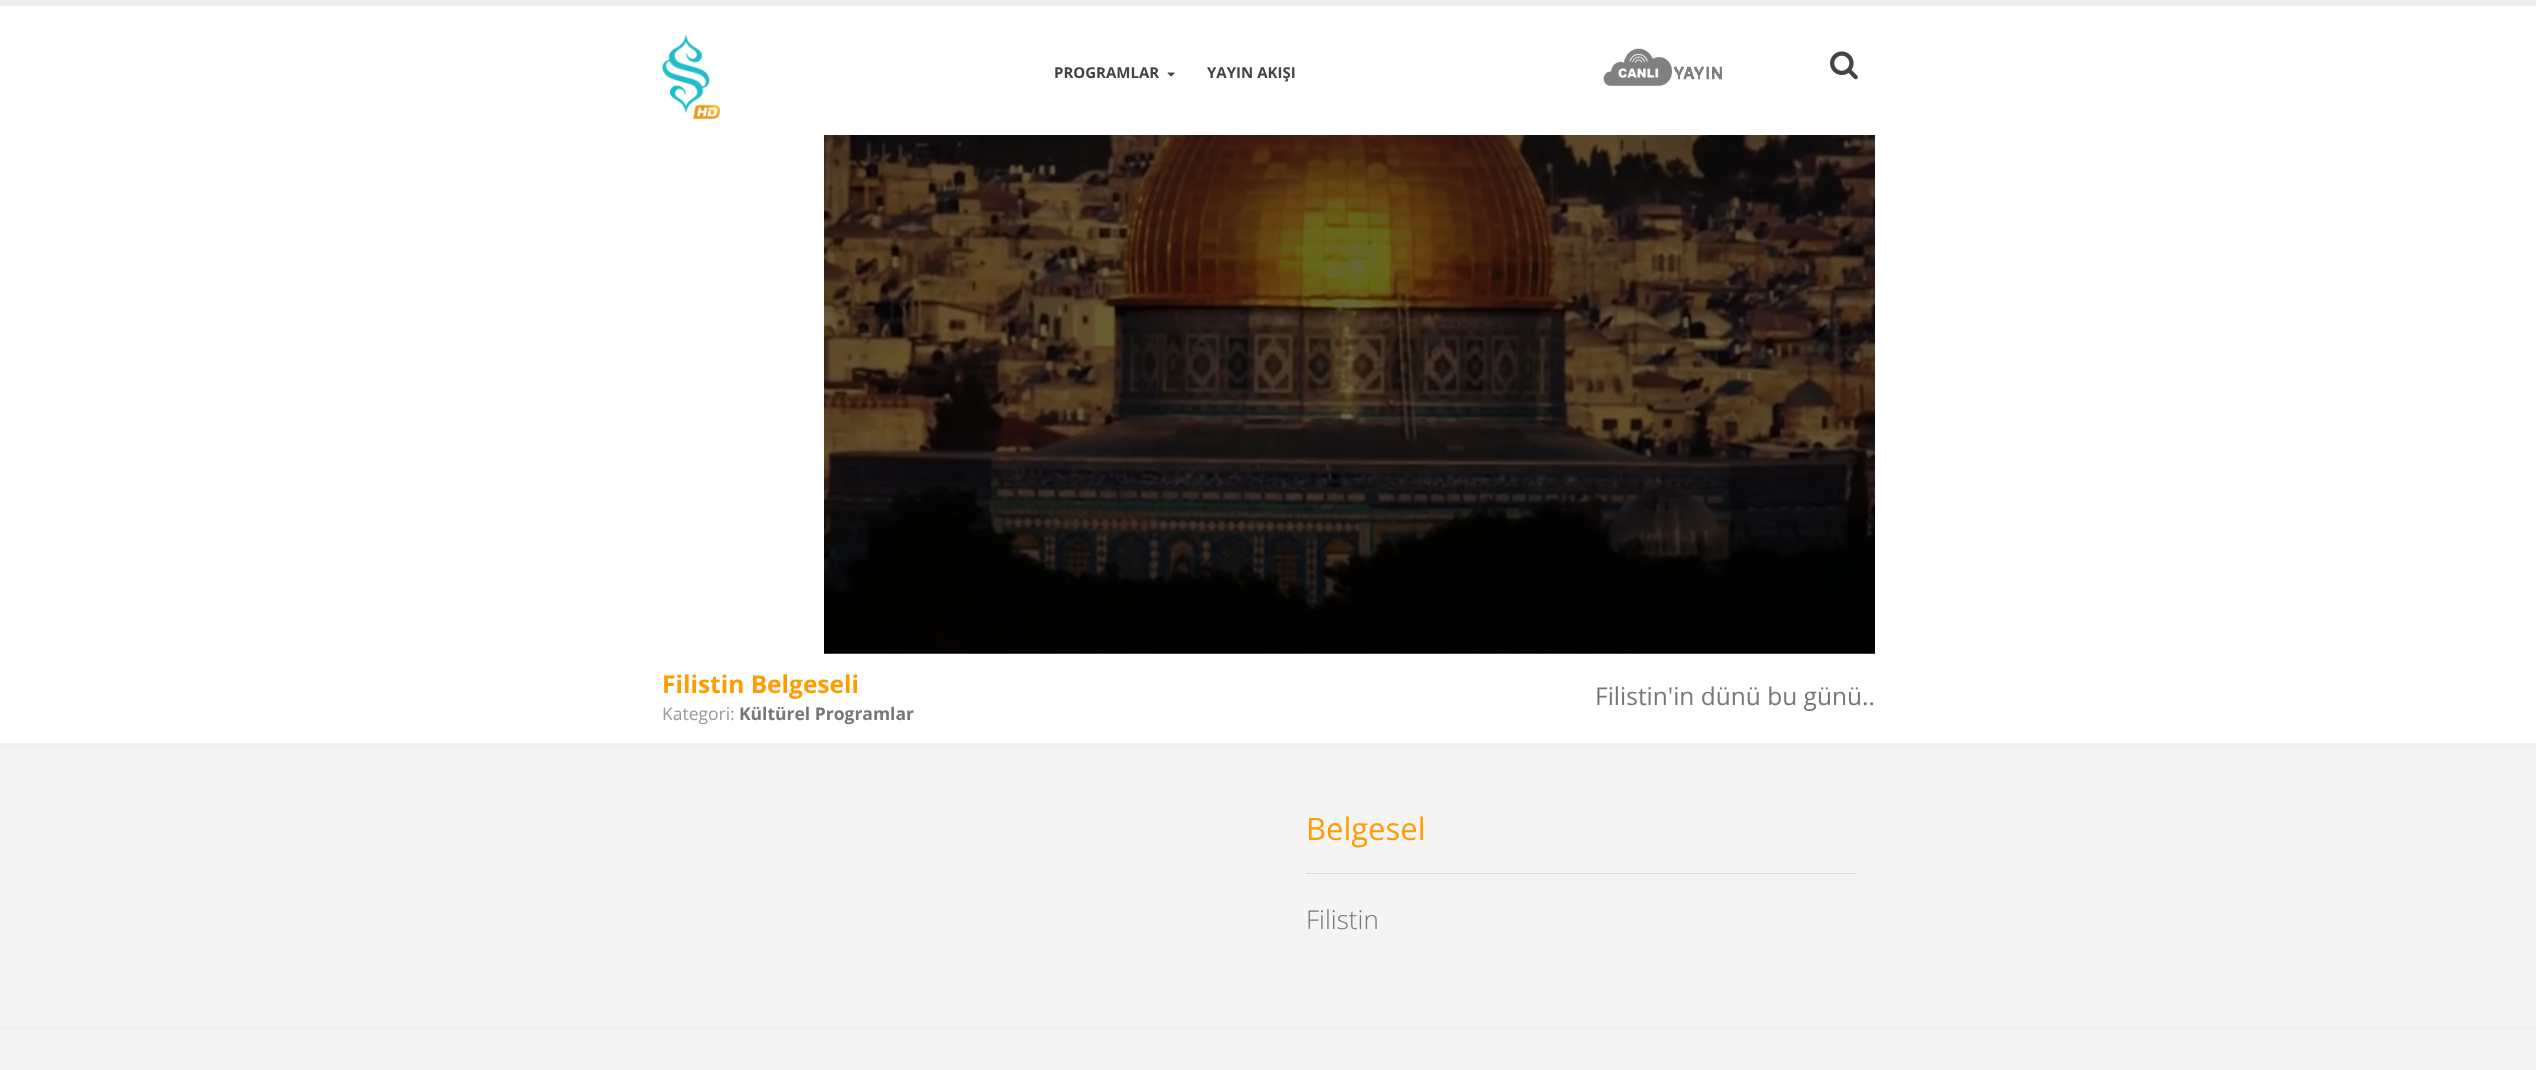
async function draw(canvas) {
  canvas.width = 2536
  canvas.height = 1070
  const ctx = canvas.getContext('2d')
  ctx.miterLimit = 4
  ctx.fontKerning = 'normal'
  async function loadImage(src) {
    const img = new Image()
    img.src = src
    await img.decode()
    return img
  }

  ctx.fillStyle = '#fff'
  ctx.fillRect(0, 0, 2536, 1070)
  ctx.fillStyle = '#ededed'
  ctx.fillRect(0, 0, 2536, 6)
  ctx.drawImage(await loadImage('image0.png'), 662, 35, 58, 84)
  ctx.font = 'bold 15px Open Sans'
  ctx.fillStyle = '#444'
  ctx.fillText('PROGRAMLAR', 1054, 78)
  ctx.drawImage(await loadImage('image1.png'), 1167, 72, 8, 5)
  ctx.fillText('YAYIN AKIŞI', 1207, 78)
  ctx.drawImage(await loadImage('image2.png'), 1603, 48, 119, 39)
  ctx.drawImage(await loadImage('image3.png'), 1830, 51, 28, 29)
  ctx.drawImage(await loadImage('image4.png'), 824, 135, 1051, 519)
  ctx.font = 'bold 24.5px Open Sans'
  ctx.fillStyle = '#ff9d00'
  ctx.fillText('Filistin Belgeseli', 662, 693)
  ctx.font = '17.5px Open Sans'
  ctx.fillStyle = '#999'
  ctx.fillText('Kategori:', 662, 720)
  ctx.font = 'bold 17.5px Open Sans'
  ctx.fillStyle = '#777'
  ctx.fillText('Kültürel Programlar', 739, 720)
  ctx.font = '24.5px Open Sans'
  ctx.fillText('Filistin\'in dünü bu günü..', 1595, 705)
  ctx.fillStyle = '#f4f4f4'
  ctx.fillRect(0, 749, 2536, 276)
  ctx.fillStyle = '#f1f1f1'
  ctx.fillRect(0, 743, 2536, 6)
  ctx.font = '31px Open Sans'
  ctx.fillStyle = '#ff9d00'
  ctx.fillText('Belgesel', 1306, 840)
  ctx.fillStyle = '#dbdbdb'
  ctx.fillRect(1306, 873, 550, 1)
  ctx.font = '300 26px Open Sans'
  ctx.fillStyle = '#777'
  ctx.fillText('Filistin', 1306, 929)
  ctx.fillStyle = '#f4f4f4'
  ctx.fillRect(0, 1031, 2536, 39)
  ctx.fillStyle = '#f1f1f1'
  ctx.fillRect(0, 1025, 2536, 6)
}

draw(document.querySelector('canvas'))
